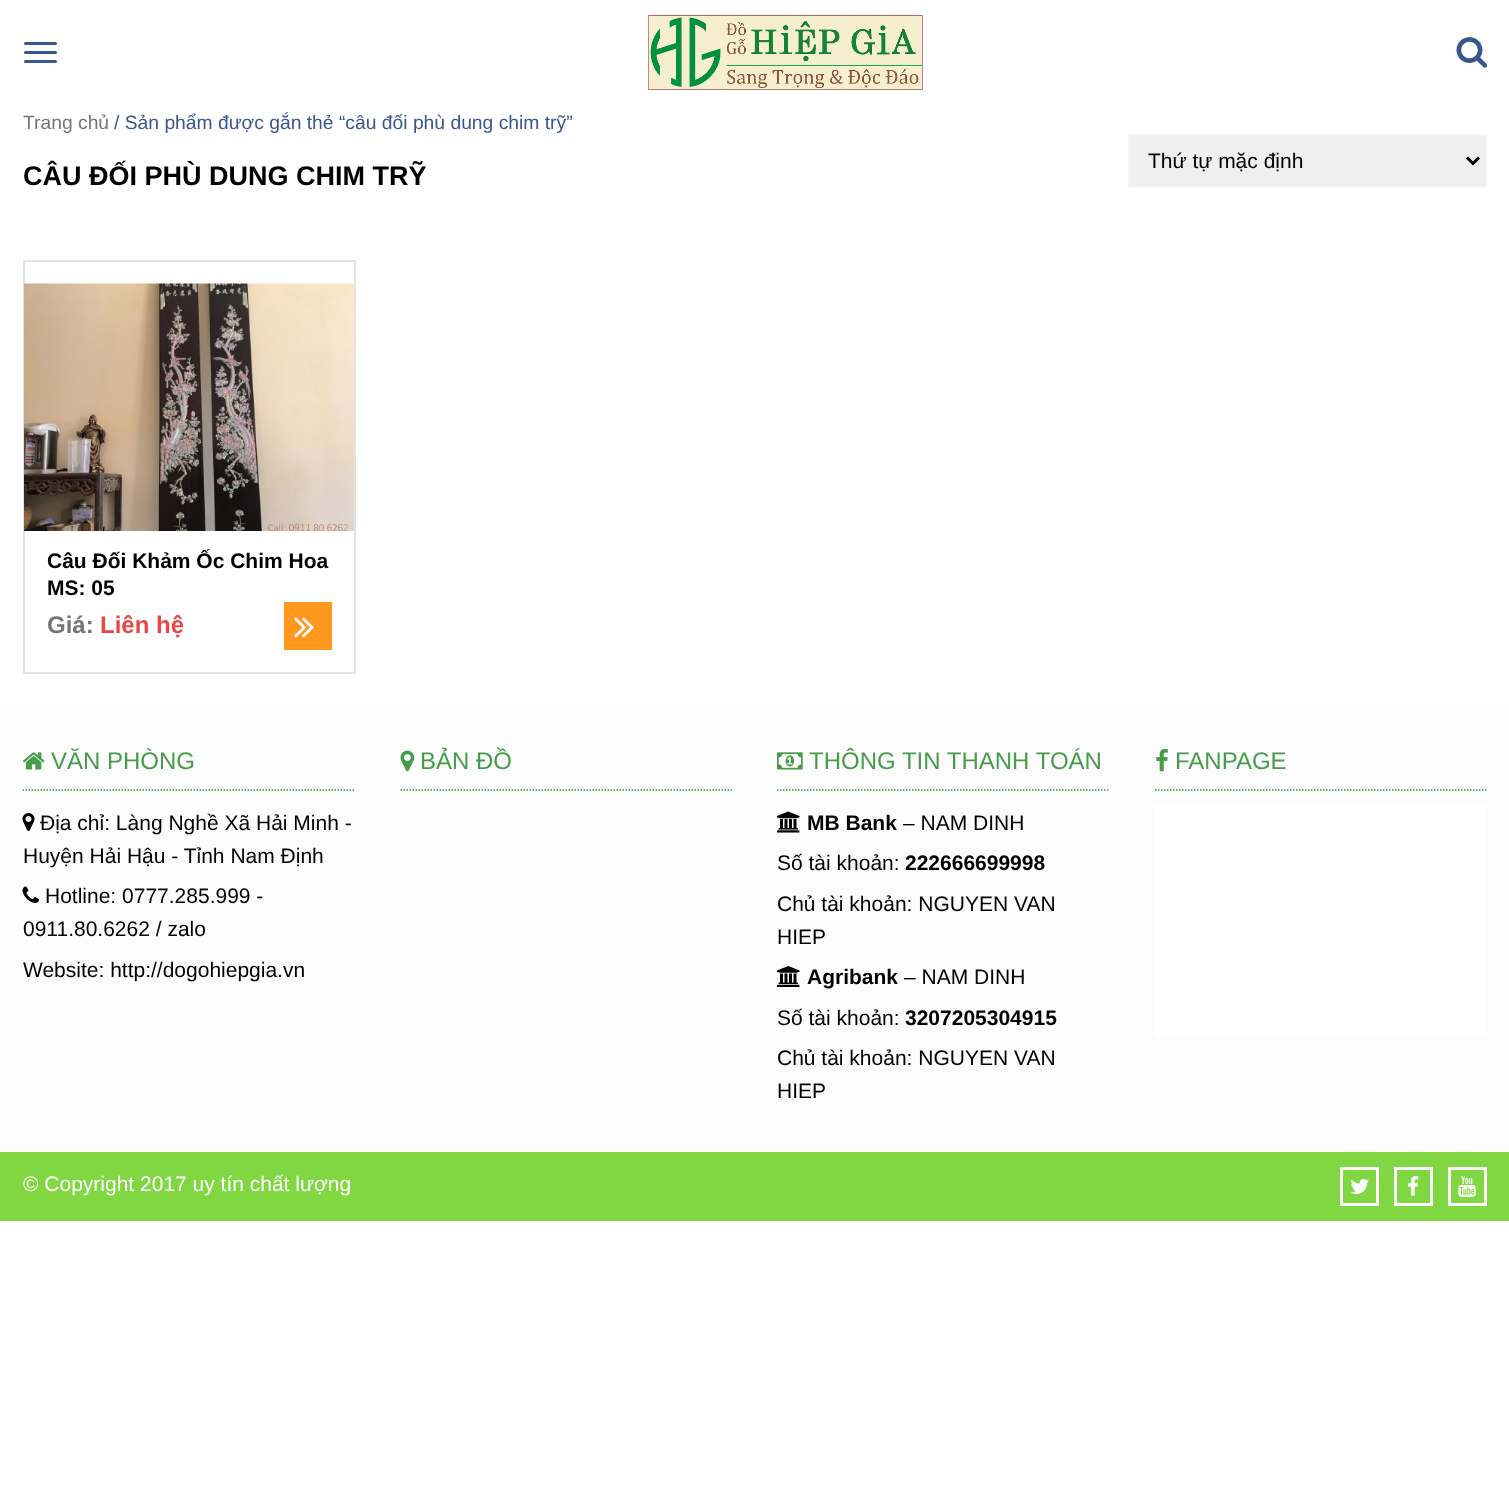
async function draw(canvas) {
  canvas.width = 1509
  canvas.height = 1493
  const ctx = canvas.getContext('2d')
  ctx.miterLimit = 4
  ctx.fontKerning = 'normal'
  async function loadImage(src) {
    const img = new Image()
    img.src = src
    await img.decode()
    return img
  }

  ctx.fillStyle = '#fff'
  ctx.fillRect(0, 0, 1509, 1493)
  ctx.fillStyle = '#38578f'
  ctx.beginPath()
  ctx.roundRect(24, 42, 33, 3, 1.5)
  ctx.fill()
  ctx.beginPath()
  ctx.roundRect(24, 51, 33, 3, 1.5)
  ctx.fill()
  ctx.beginPath()
  ctx.roundRect(24, 60, 33, 3, 1.5)
  ctx.fill()
  ctx.drawImage(await loadImage('image0.png'), 648, 15, 275, 75)
  ctx.drawImage(await loadImage('image1.png'), 1456, 37, 32, 31)
  ctx.font = '19.3px Liberation Sans'
  ctx.fillStyle = '#767676'
  ctx.fillText('Trang chủ', 23, 129)
  ctx.fillStyle = '#38578f'
  ctx.fillText('/ Sản phẩm được gắn thẻ “câu đối phù dung chim trỹ”', 114, 129)
  ctx.font = 'bold 27px Liberation Sans'
  ctx.fillStyle = '#000'
  ctx.fillText('CÂU ĐỐI PHÙ DUNG CHIM TRỸ', 23, 185)
  ctx.fillStyle = '#efefef'
  ctx.beginPath()
  ctx.rect(1129, 135, 357, 52)
  ctx.fill()
  ctx.strokeStyle = '#f5f5f5'
  ctx.lineWidth = 2
  ctx.stroke()
  ctx.beginPath()
  ctx.moveTo(1467, 157.5)
  ctx.lineTo(1473, 163.5)
  ctx.lineTo(1479, 157.5)
  ctx.strokeStyle = '#000'
  ctx.lineWidth = 3
  ctx.stroke()
  ctx.font = '21px Liberation Sans'
  ctx.fillStyle = '#000'
  ctx.fillText('Thứ tự mặc định', 1148, 168)
  ctx.strokeStyle = '#e3e3e3'
  ctx.lineWidth = 2
  ctx.strokeRect(24, 261, 331, 412)
  ctx.drawImage(await loadImage('image2.png'), 24, 283, 330, 248)
  ctx.font = 'bold 21px Liberation Sans'
  ctx.fillText('Câu Đối Khảm Ốc Chim Hoa', 47, 568)
  ctx.fillText('MS: 05', 47, 595)
  ctx.font = 'bold 24px Liberation Sans'
  ctx.fillStyle = '#767676'
  ctx.fillText('Giá:', 47, 633)
  ctx.fillStyle = '#e74847'
  ctx.fillText('Liên hệ', 100, 633)
  ctx.fillStyle = '#ff981c'
  ctx.fillRect(284, 602, 48, 48)
  ctx.drawImage(await loadImage('image3.png'), 294, 617, 20, 21)
  ctx.fillStyle = '#fcfcfc'
  ctx.fillRect(0, 704, 1509, 448)
  ctx.beginPath()
  ctx.moveTo(22.5, 790)
  ctx.lineTo(355.5, 790)
  ctx.strokeStyle = '#479c4b'
  ctx.lineWidth = 1.5
  ctx.setLineDash([1.5, 1.5])
  ctx.stroke()
  ctx.drawImage(await loadImage('image4.png'), 22, 752, 23, 18)
  ctx.font = '24px Liberation Sans'
  ctx.fillStyle = '#479c4b'
  ctx.fillText('VĂN PHÒNG', 51, 769)
  ctx.drawImage(await loadImage('image5.png'), 22, 813, 13, 18)
  ctx.font = '21px Liberation Sans'
  ctx.fillStyle = '#000'
  ctx.fillText('Địa chỉ: Làng Nghề Xã Hải Minh -', 40, 830)
  ctx.fillText('Huyện Hải Hậu - Tỉnh Nam Định', 23, 863)
  ctx.drawImage(await loadImage('image6.png'), 22, 886, 17, 17)
  ctx.fillText('Hotline: 0777.285.999 -', 45, 903)
  ctx.fillText('0911.80.6262 / zalo', 23, 936)
  ctx.fillText('Website: http://dogohiepgia.vn', 23, 977)
  ctx.beginPath()
  ctx.moveTo(400.5, 790)
  ctx.lineTo(732, 790)
  ctx.stroke()
  ctx.drawImage(await loadImage('image7.png'), 400, 750, 15, 22)
  ctx.font = '24px Liberation Sans'
  ctx.fillStyle = '#479c4b'
  ctx.fillText('BẢN ĐỒ', 420, 769)
  ctx.beginPath()
  ctx.moveTo(777, 790)
  ctx.lineTo(1110, 790)
  ctx.stroke()
  ctx.drawImage(await loadImage('image8.png'), 777, 752, 26, 18)
  ctx.fillText('THÔNG TIN THANH TOÁN', 809, 769)
  ctx.drawImage(await loadImage('image9.png'), 777, 811, 23, 22)
  ctx.font = 'bold 21px Liberation Sans'
  ctx.fillStyle = '#000'
  ctx.fillText('MB Bank', 807, 830)
  ctx.font = '21px Liberation Sans'
  ctx.fillText('– NAM DINH', 903, 830)
  ctx.fillText('Số tài khoản:', 777, 870)
  ctx.font = 'bold 21px Liberation Sans'
  ctx.fillText('222666699998', 905, 870)
  ctx.font = '21px Liberation Sans'
  ctx.fillText('Chủ tài khoản: NGUYEN VAN', 777, 911)
  ctx.fillText('HIEP', 777, 944)
  ctx.drawImage(await loadImage('image10.png'), 777, 966, 23, 21)
  ctx.font = 'bold 21px Liberation Sans'
  ctx.fillText('Agribank', 807, 984)
  ctx.font = '21px Liberation Sans'
  ctx.fillText('– NAM DINH', 904, 984)
  ctx.fillText('Số tài khoản:', 777, 1025)
  ctx.font = 'bold 21px Liberation Sans'
  ctx.fillText('3207205304915', 905, 1025)
  ctx.font = '21px Liberation Sans'
  ctx.fillText('Chủ tài khoản: NGUYEN VAN', 777, 1065)
  ctx.fillText('HIEP', 777, 1098)
  ctx.beginPath()
  ctx.moveTo(1155, 790)
  ctx.lineTo(1486.5, 790)
  ctx.stroke()
  ctx.drawImage(await loadImage('image11.png'), 1156, 748, 12, 24)
  ctx.font = '24px Liberation Sans'
  ctx.fillStyle = '#479c4b'
  ctx.fillText('FANPAGE', 1175, 769)
  ctx.fillStyle = '#fff'
  ctx.fillRect(1155, 806, 332, 231)
  ctx.fillStyle = '#81d742'
  ctx.fillRect(0, 1152, 1509, 69)
  ctx.font = '21px Liberation Sans'
  ctx.fillStyle = '#fff'
  ctx.fillText('© Copyright 2017 uy tín chất lượng', 23, 1191)
  ctx.strokeStyle = '#fff'
  ctx.lineWidth = 3
  ctx.setLineDash([])
  ctx.strokeRect(1341.5, 1168.5, 36, 36)
  ctx.drawImage(await loadImage('image12.png'), 1350, 1179, 19, 15)
  ctx.strokeRect(1395.5, 1168.5, 36, 36)
  ctx.drawImage(await loadImage('image13.png'), 1408, 1176, 11, 20)
  ctx.strokeRect(1449.5, 1168.5, 36, 36)
  ctx.drawImage(await loadImage('image14.png'), 1458, 1176, 18, 21)
}

draw(document.querySelector('canvas'))
